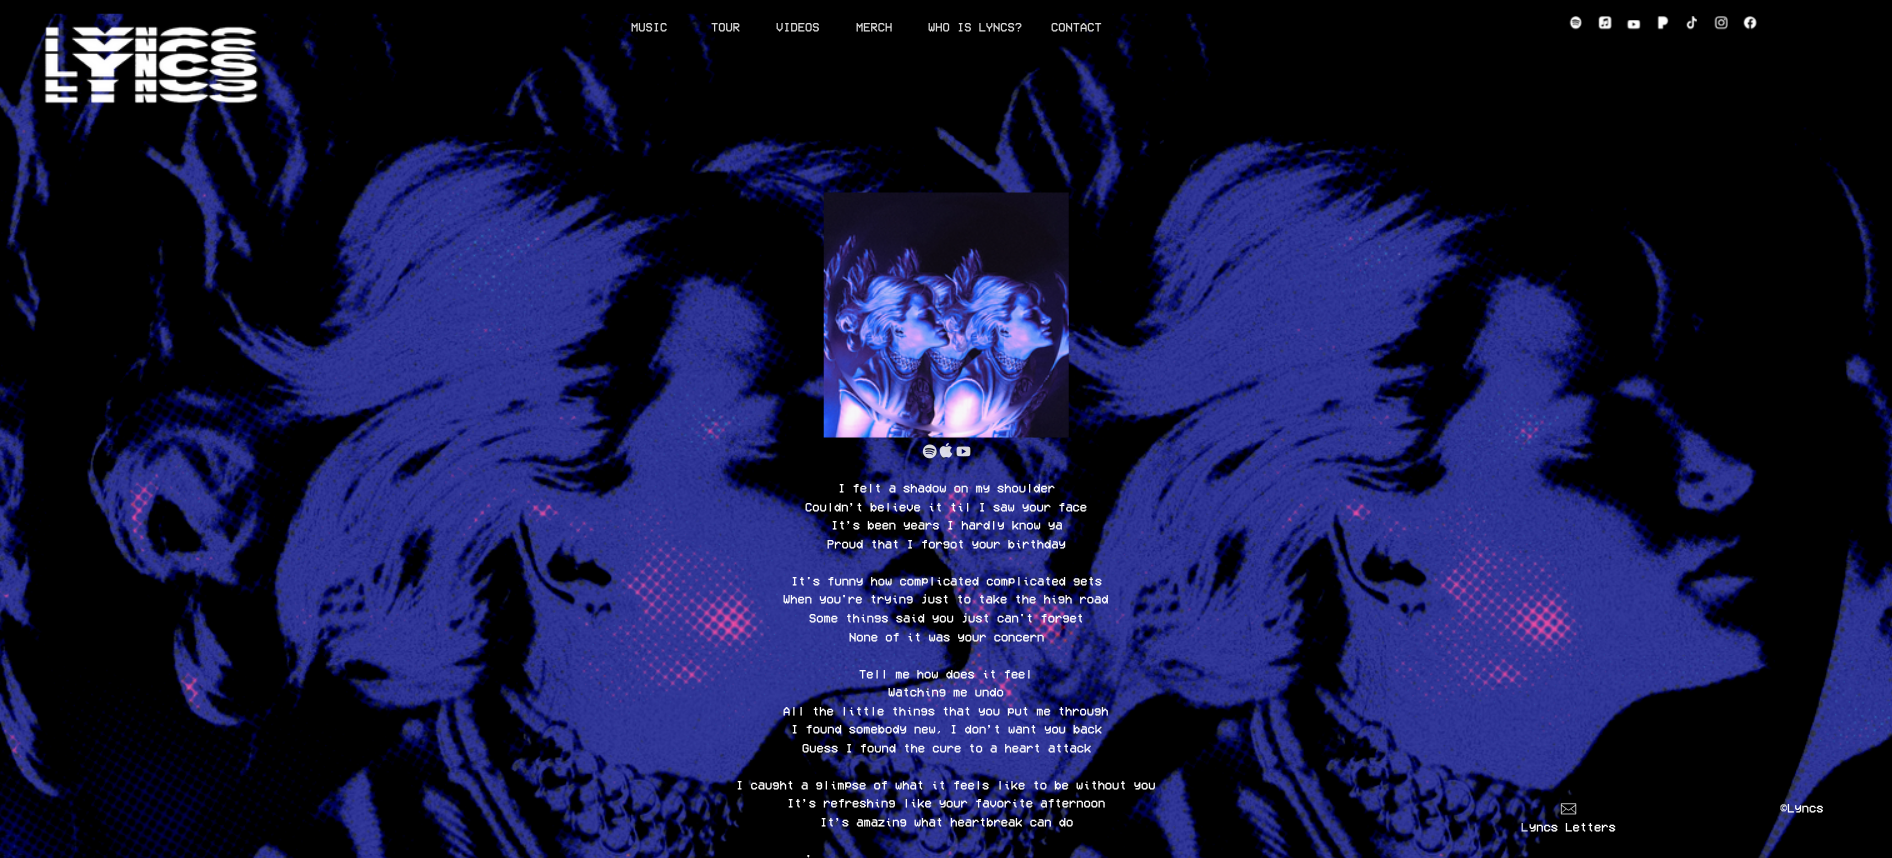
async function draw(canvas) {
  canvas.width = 1892
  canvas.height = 858
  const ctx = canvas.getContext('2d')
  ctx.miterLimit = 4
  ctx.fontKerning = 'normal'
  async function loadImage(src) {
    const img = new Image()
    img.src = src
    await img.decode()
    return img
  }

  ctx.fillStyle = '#000'
  ctx.fillRect(0, 0, 1892, 858)
  ctx.drawImage(await loadImage('image8.png'), 0, 13, 1892, 845)
  ctx.drawImage(await loadImage('image0.png'), 44, 26, 214, 78)
  ctx.font = '12.35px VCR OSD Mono'
  ctx.fillStyle = '#d9d9d9'
  ctx.fillText('MUSIC', 631, 32)
  ctx.fillText('TOUR', 711, 32)
  ctx.fillText('VIDEOS', 776, 32)
  ctx.fillText('MERCH', 856, 32)
  ctx.fillText('WHO IS LYNCS?', 928, 32)
  ctx.fillText('CONTACT', 1051, 32)
  ctx.drawImage(await loadImage('image1.png'), 1569, 16, 13, 14)
  ctx.drawImage(await loadImage('image2.png'), 1598, 16, 14, 14)
  ctx.drawImage(await loadImage('image3.png'), 1626, 20, 15, 10)
  ctx.drawImage(await loadImage('image4.png'), 1657, 16, 12, 14)
  ctx.drawImage(await loadImage('image5.png'), 1686, 16, 11, 14)
  ctx.drawImage(await loadImage('image6.png'), 1714, 16, 14, 14)
  ctx.drawImage(await loadImage('image7.png'), 1743, 16, 14, 14)
  ctx.drawImage(await loadImage('image9.png'), 823, 192, 246, 246)
  ctx.drawImage(await loadImage('image10.png'), 922, 444, 15, 15)
  ctx.drawImage(await loadImage('image11.png'), 939, 442, 14, 16)
  ctx.drawImage(await loadImage('image12.png'), 956, 446, 15, 11)
  ctx.fillStyle = '#fff'
  ctx.fillText('I felt a shadow on my shoulder', 838, 493)
  ctx.fillText('Couldn’t believe it til I saw your face', 805, 512)
  ctx.fillText('It’s been years I hardly know ya', 831, 530)
  ctx.fillText('Proud that I forgot your birthday', 827, 549)
  ctx.fillText('It\'s funny how complicated complicated gets', 791, 586)
  ctx.fillText('When you\'re trying just to take the high road', 783, 604)
  ctx.fillText('Some things said you just can\'t forget', 809, 623)
  ctx.fillText('None of it was your concern', 849, 642)
  ctx.fillText('Tell me how does it feel', 859, 679)
  ctx.fillText('Watching me undo', 888, 697)
  ctx.fillText('All the little things that you put me through', 783, 716)
  ctx.fillText('I found somebody new, I don’t want you back', 791, 734)
  ctx.fillText('Guess I found the cure to a heart attack', 802, 753)
  ctx.fillText('I caught a glimpse of what it feels like to be without you', 736, 790)
  ctx.fillText('It’s refreshing like your favorite afternoon', 787, 808)
  ctx.fillText('It’s amazing what heartbreak can do', 820, 827)
  ctx.fillText('\'', 805, 864)
  ctx.fillText('©Lyncs', 1780, 813)
  ctx.drawImage(await loadImage('image13.png'), 1560, 803, 17, 12)
  ctx.fillStyle = '#dbdbe4'
  ctx.fillText('L', 1521, 832)
  ctx.fillStyle = '#fff'
  ctx.fillText('yncs Letters', 1529, 832)
}

draw(document.querySelector('canvas'))
